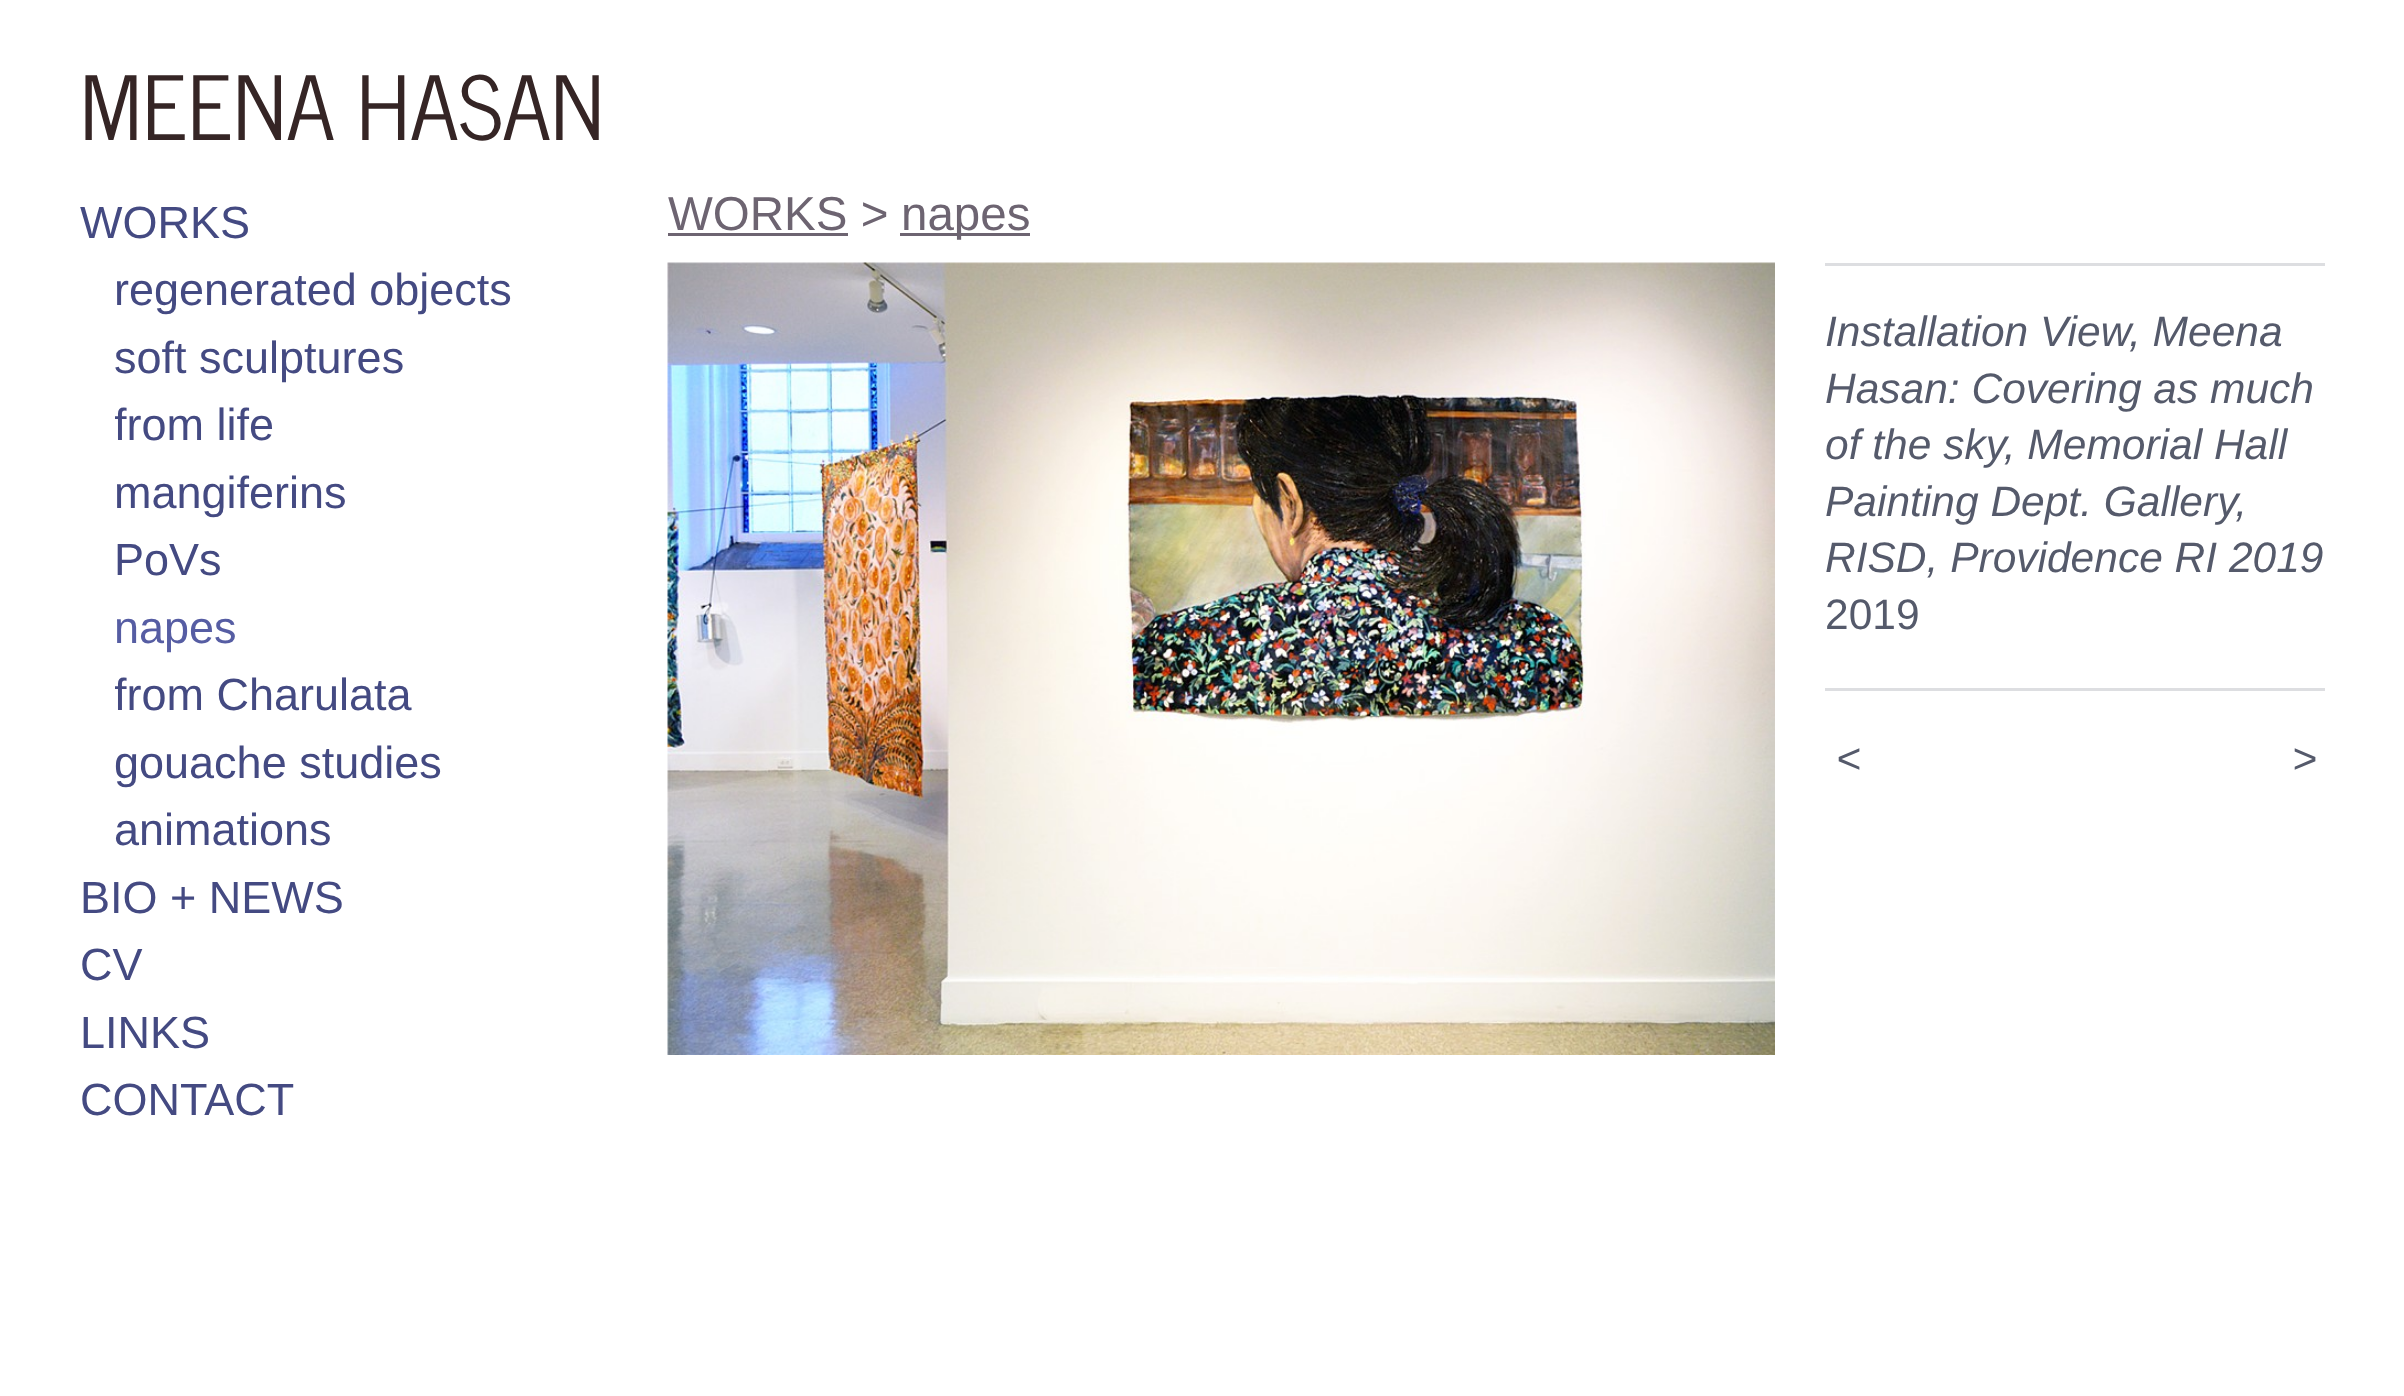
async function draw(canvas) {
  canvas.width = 2404
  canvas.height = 1396
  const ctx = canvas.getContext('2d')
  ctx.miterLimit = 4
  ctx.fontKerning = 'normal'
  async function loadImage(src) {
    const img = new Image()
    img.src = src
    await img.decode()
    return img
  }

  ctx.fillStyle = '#fff'
  ctx.fillRect(0, 0, 2404, 1396)
  ctx.font = '87.5px News Cycle'
  ctx.fillStyle = '#352525'
  ctx.fillText('MEENA HASAN', 80, 140)
  ctx.font = '45px Liberation Sans'
  ctx.fillStyle = '#444a82'
  ctx.fillText('WORKS', 80, 238)
  ctx.fillText('regenerated objects', 114, 305)
  ctx.fillText('soft sculptures', 114, 373)
  ctx.save()
  ctx.beginPath()
  ctx.rect(115, 393, 465, 67)
  ctx.clip()
  ctx.fillText('from life', 114, 440)
  ctx.restore()
  ctx.fillText('mangiferins', 114, 508)
  ctx.fillText('PoVs', 114, 575)
  ctx.fillStyle = '#565da3'
  ctx.fillText('napes', 114, 643)
  ctx.save()
  ctx.beginPath()
  ctx.rect(115, 663, 465, 67)
  ctx.clip()
  ctx.fillStyle = '#444a82'
  ctx.fillText('from Charulata', 114, 710)
  ctx.restore()
  ctx.fillStyle = '#444a82'
  ctx.fillText('gouache studies', 114, 778)
  ctx.fillText('animations', 114, 845)
  ctx.fillText('BIO + NEWS', 80, 913)
  ctx.fillText('CV', 80, 980)
  ctx.fillText('LINKS', 80, 1048)
  ctx.fillText('CONTACT', 80, 1115)
  ctx.font = '47.5px Liberation Sans'
  ctx.fillStyle = '#6d6471'
  ctx.fillText('WORKS >', 668, 230)
  ctx.fillRect(668, 233, 180, 3)
  ctx.fillRect(900, 233, 130, 3)
  ctx.fillText('napes', 901, 230)
  ctx.drawImage(await loadImage('image0.png'), 667, 262, 1108, 793)
  ctx.fillStyle = '#dddee1'
  ctx.fillRect(1825, 263, 500, 3)
  ctx.font = 'italic 42.5px Liberation Sans'
  ctx.fillStyle = '#555a6b'
  ctx.fillText('Installation View, Meena', 1825, 346)
  ctx.fillText('Hasan: Covering as much', 1825, 403)
  ctx.fillText('of the sky, Memorial Hall', 1825, 459)
  ctx.fillText('Painting Dept. Gallery,', 1825, 516)
  ctx.fillText('RISD, Providence RI 2019', 1825, 572)
  ctx.font = '42.5px Liberation Sans'
  ctx.fillText('2019', 1825, 629)
  ctx.fillStyle = '#dddee1'
  ctx.fillRect(1825, 688, 500, 3)
  ctx.letterSpacing = '2px'
  ctx.font = 'italic 42.5px Liberation Sans'
  ctx.fillStyle = '#555a6b'
  ctx.fillText('<', 1836, 773)
  ctx.fillText('>', 2292, 773)
}

draw(document.querySelector('canvas'))
